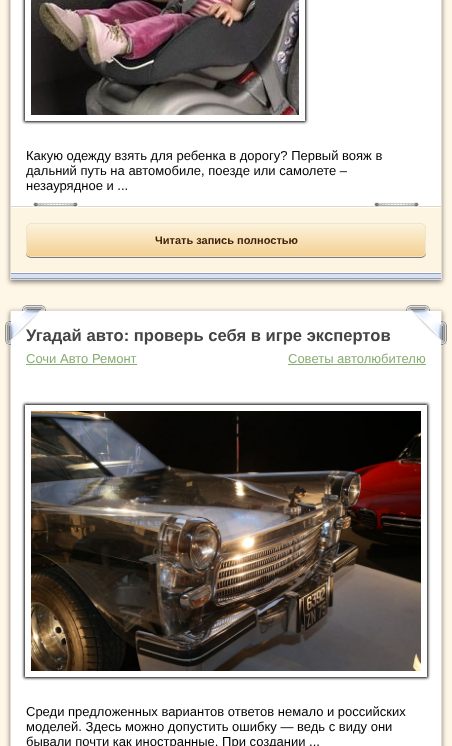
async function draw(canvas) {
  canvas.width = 452
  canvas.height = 746
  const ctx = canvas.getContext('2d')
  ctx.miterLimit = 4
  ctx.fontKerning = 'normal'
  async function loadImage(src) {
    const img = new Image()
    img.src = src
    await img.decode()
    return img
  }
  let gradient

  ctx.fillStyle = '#fef6e6'
  ctx.fillRect(0, 0, 452, 746)
  ctx.fillStyle = '#00000080'
  ctx.filter = 'blur(2.5px)'
  ctx.beginPath()
  ctx.rect(10, -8, 432, 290)
  ctx.fill()
  ctx.filter = 'none'
  ctx.fillStyle = '#fff'
  ctx.fillRect(11, 0, 430, 273)
  ctx.drawImage(await loadImage('image0.png'), 11, 273, 430, 7)
  ctx.fillStyle = '#e3dcce'
  ctx.fillRect(441, 0, 1, 280)
  ctx.fillRect(10, 0, 1, 280)
  ctx.fillStyle = '#000'
  ctx.filter = 'blur(1.5px)'
  ctx.beginPath()
  ctx.rect(24, -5, 282, 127)
  ctx.fill()
  ctx.filter = 'none'
  ctx.strokeStyle = '#fff'
  ctx.lineWidth = 6
  ctx.strokeRect(28, -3, 274, 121)
  ctx.drawImage(await loadImage('image1.png'), 31, 0, 268, 115)
  ctx.font = '13px Liberation Sans'
  ctx.fillText('Какую одежду взять для ребенка в дорогу? Первый вояж в', 26, 160)
  ctx.fillText('дальний путь на автомобиле, поезде или самолете –', 26, 175)
  ctx.fillText('незаурядное и ...', 26, 190)
  ctx.fillStyle = '#e5d6c0'
  ctx.fillRect(11, 206, 430, 1)
  ctx.fillStyle = '#fdf5e1'
  ctx.fillRect(11, 208, 430, 64)
  ctx.drawImage(await loadImage('image2.png'), 33, 202, 46, 5)
  ctx.drawImage(await loadImage('image2.png'), 374, 202, 46, 5)
  ctx.fillStyle = '#00000080'
  ctx.filter = 'blur(0.5px)'
  ctx.beginPath()
  ctx.roundRect(26, 224, 400, 34, 5)
  ctx.fill()
  ctx.filter = 'none'
  ctx.save()
  ctx.beginPath()
  ctx.roundRect(26, 223, 400, 34, 5)
  ctx.clip()
  gradient = ctx.createLinearGradient(226, 256, 226, 224)
  gradient.addColorStop(0, '#f3d192')
  gradient.addColorStop(1, '#fcf2dc')
  ctx.fillStyle = gradient
  ctx.fillRect(26, 224, 400, 32)
  ctx.restore()
  ctx.beginPath()
  ctx.roundRect(26.5, 223.5, 399, 33, 4.5)
  ctx.strokeStyle = '#ece5d2'
  ctx.lineWidth = 1
  ctx.stroke()
  ctx.font = 'bold 11px Liberation Sans'
  ctx.fillStyle = '#3f1e08'
  ctx.fillText('Читать запись полностью', 155, 244)
  ctx.fillStyle = '#00000080'
  ctx.filter = 'blur(2.5px)'
  ctx.beginPath()
  ctx.rect(10, 312, 432, 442)
  ctx.fill()
  ctx.filter = 'none'
  ctx.fillStyle = '#fff'
  ctx.fillRect(11, 311, 430, 435)
  ctx.fillStyle = '#e3dcce'
  ctx.fillRect(10, 310, 432, 1)
  ctx.fillRect(441, 310, 1, 436)
  ctx.fillRect(10, 310, 1, 436)
  ctx.font = 'bold 16.6px Liberation Sans'
  ctx.fillStyle = '#444'
  ctx.fillText('Угадай авто: проверь себя в игре экспертов', 26, 341)
  ctx.drawImage(await loadImage('image3.png'), 5, 305, 41, 41)
  ctx.font = '13px Liberation Sans'
  ctx.fillStyle = '#88ad72'
  ctx.fillText('Сочи Авто Ремонт', 26, 363)
  ctx.fillRect(26, 364, 111, 1)
  ctx.fillText('Советы автолюбителю', 288, 363)
  ctx.fillRect(288, 364, 138, 1)
  ctx.drawImage(await loadImage('image4.png'), 406, 305, 41, 41)
  ctx.fillStyle = '#000'
  ctx.filter = 'blur(1.5px)'
  ctx.beginPath()
  ctx.rect(24, 404, 404, 274)
  ctx.fill()
  ctx.filter = 'none'
  ctx.strokeStyle = '#fff'
  ctx.lineWidth = 6
  ctx.strokeRect(28, 408, 396, 266)
  ctx.drawImage(await loadImage('image5.png'), 31, 411, 390, 260)
  ctx.fillText('Среди предложенных вариантов ответов немало и российских', 26, 716)
  ctx.fillText('моделей. Здесь можно допустить ошибку — ведь с виду они', 26, 731)
  ctx.fillText('бывали почти как иностранные. При создании ...', 26, 746)
}

draw(document.querySelector('canvas'))
